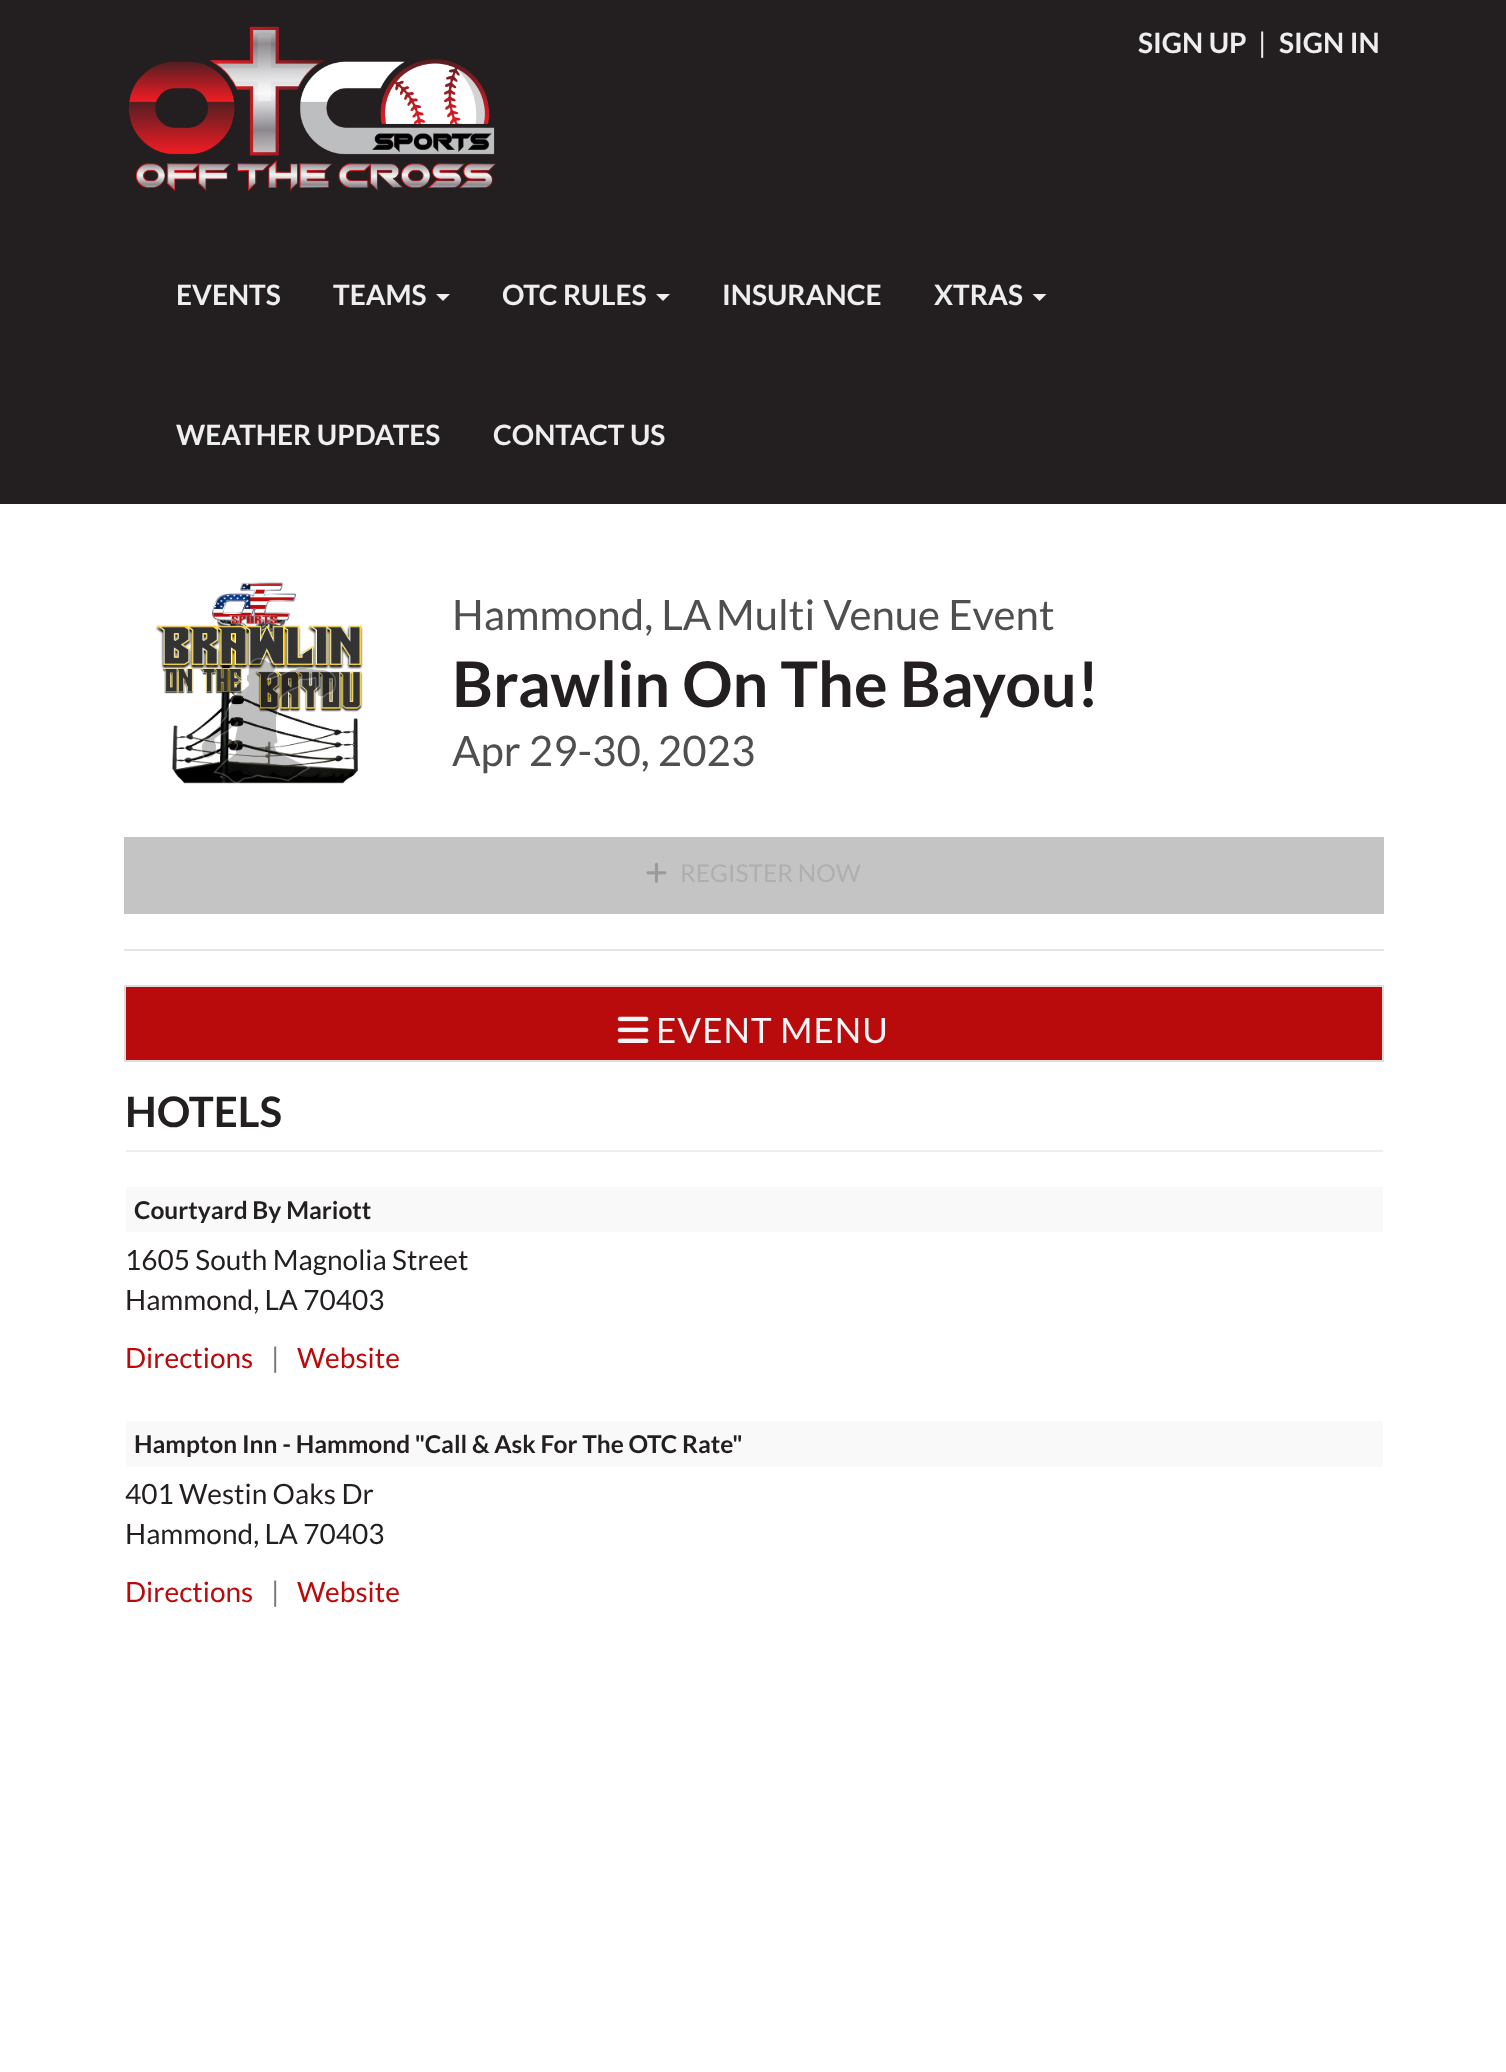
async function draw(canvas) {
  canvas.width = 1506
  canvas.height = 2072
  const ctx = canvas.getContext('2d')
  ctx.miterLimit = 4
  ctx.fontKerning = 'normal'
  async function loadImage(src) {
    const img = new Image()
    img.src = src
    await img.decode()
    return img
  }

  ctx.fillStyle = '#fff'
  ctx.fillRect(0, 0, 1506, 2072)
  ctx.fillStyle = '#231f20'
  ctx.fillRect(0, 0, 1506, 504)
  ctx.font = 'bold 28px Lato'
  ctx.fillStyle = '#eee'
  ctx.fillText('SIGN UP', 1138, 53)
  ctx.font = '28px Lato'
  ctx.fillText('|', 1258, 53)
  ctx.font = 'bold 28px Lato'
  ctx.fillText('SIGN IN', 1279, 53)
  ctx.drawImage(await loadImage('image0.png'), 128, 26, 369, 165)
  ctx.fillText('EVENTS', 176, 305)
  ctx.fillText('TEAMS', 333, 305)
  ctx.beginPath()
  ctx.moveTo(436, 294)
  ctx.lineTo(450, 294)
  ctx.lineTo(443, 301)
  ctx.closePath()
  ctx.fill()
  ctx.fillText('OTC RULES', 502, 305)
  ctx.beginPath()
  ctx.moveTo(656, 294)
  ctx.lineTo(670, 294)
  ctx.lineTo(663, 301)
  ctx.closePath()
  ctx.fill()
  ctx.fillText('INSURANCE', 722, 305)
  ctx.fillText('XTRAS', 934, 305)
  ctx.beginPath()
  ctx.moveTo(1032.5, 294)
  ctx.lineTo(1046.5, 294)
  ctx.lineTo(1039.5, 301)
  ctx.closePath()
  ctx.fill()
  ctx.fillText('WEATHER UPDATES', 176, 445)
  ctx.fillText('CONTACT US', 493, 445)
  ctx.drawImage(await loadImage('image1.png'), 155, 582, 208, 202)
  ctx.font = '42px Lato'
  ctx.fillStyle = '#4f4f4f'
  ctx.fillText('Hammond, LA', 452, 630)
  ctx.fillText('Multi Venue Event', 716, 630)
  ctx.font = 'bold 63px Lato'
  ctx.fillStyle = '#231f20'
  ctx.fillText('Brawlin On The Bayou!', 452, 707)
  ctx.font = '42px Lato'
  ctx.fillStyle = '#4f4f4f'
  ctx.fillText('Apr 29-30, 2023', 452, 766)
  ctx.fillStyle = '#c4c4c4'
  ctx.fillRect(124, 837, 1260, 77)
  ctx.drawImage(await loadImage('image2.png'), 646, 862, 21, 21)
  ctx.font = '24.5px Lato'
  ctx.fillStyle = '#afafaf'
  ctx.fillText('REGISTER NOW', 680, 882)
  ctx.fillStyle = '#e5e5e5'
  ctx.fillRect(124, 949, 1260, 2)
  ctx.fillStyle = '#b90b0c'
  ctx.beginPath()
  ctx.rect(125, 986, 1258, 75)
  ctx.fill()
  ctx.strokeStyle = '#ddd'
  ctx.lineWidth = 2
  ctx.stroke()
  ctx.drawImage(await loadImage('image3.png'), 617, 1016, 32, 27)
  ctx.letterSpacing = '1px'
  ctx.font = '35px Lato'
  ctx.fillStyle = '#f5f6f7'
  ctx.fillText('EVENT MENU', 656, 1043)
  ctx.fillStyle = '#eee'
  ctx.fillRect(126, 1150, 1257, 2)
  ctx.letterSpacing = '0px'
  ctx.font = 'bold 42px Lato'
  ctx.fillStyle = '#231f20'
  ctx.fillText('HOTELS', 125, 1127)
  ctx.fillStyle = '#f9f9f9'
  ctx.fillRect(126, 1187, 1257, 45)
  ctx.font = 'bold 24.5px Lato'
  ctx.fillStyle = '#231f20'
  ctx.fillText('Courtyard By Mariott', 134, 1219)
  ctx.font = '28px Lato'
  ctx.fillText('1605 South Magnolia Street', 125, 1270)
  ctx.fillText('Hammond, LA 70403', 125, 1310)
  ctx.fillStyle = '#b90b0c'
  ctx.fillText('Directions', 125, 1368)
  ctx.fillStyle = '#777'
  ctx.fillText('|', 271, 1368)
  ctx.fillStyle = '#b90b0c'
  ctx.fillText('Website', 297, 1368)
  ctx.fillStyle = '#f9f9f9'
  ctx.fillRect(126, 1421, 1257, 46)
  ctx.font = 'bold 24.5px Lato'
  ctx.fillStyle = '#231f20'
  ctx.fillText('Hampton Inn - Hammond "Call & Ask For The OTC Rate"', 134, 1453)
  ctx.font = '28px Lato'
  ctx.fillText('401 Westin Oaks Dr', 125, 1504)
  ctx.fillText('Hammond, LA 70403', 125, 1544)
  ctx.fillStyle = '#b90b0c'
  ctx.fillText('Directions', 125, 1602)
  ctx.fillStyle = '#777'
  ctx.fillText('|', 271, 1602)
  ctx.fillStyle = '#b90b0c'
  ctx.fillText('Website', 297, 1602)
}

draw(document.querySelector('canvas'))
